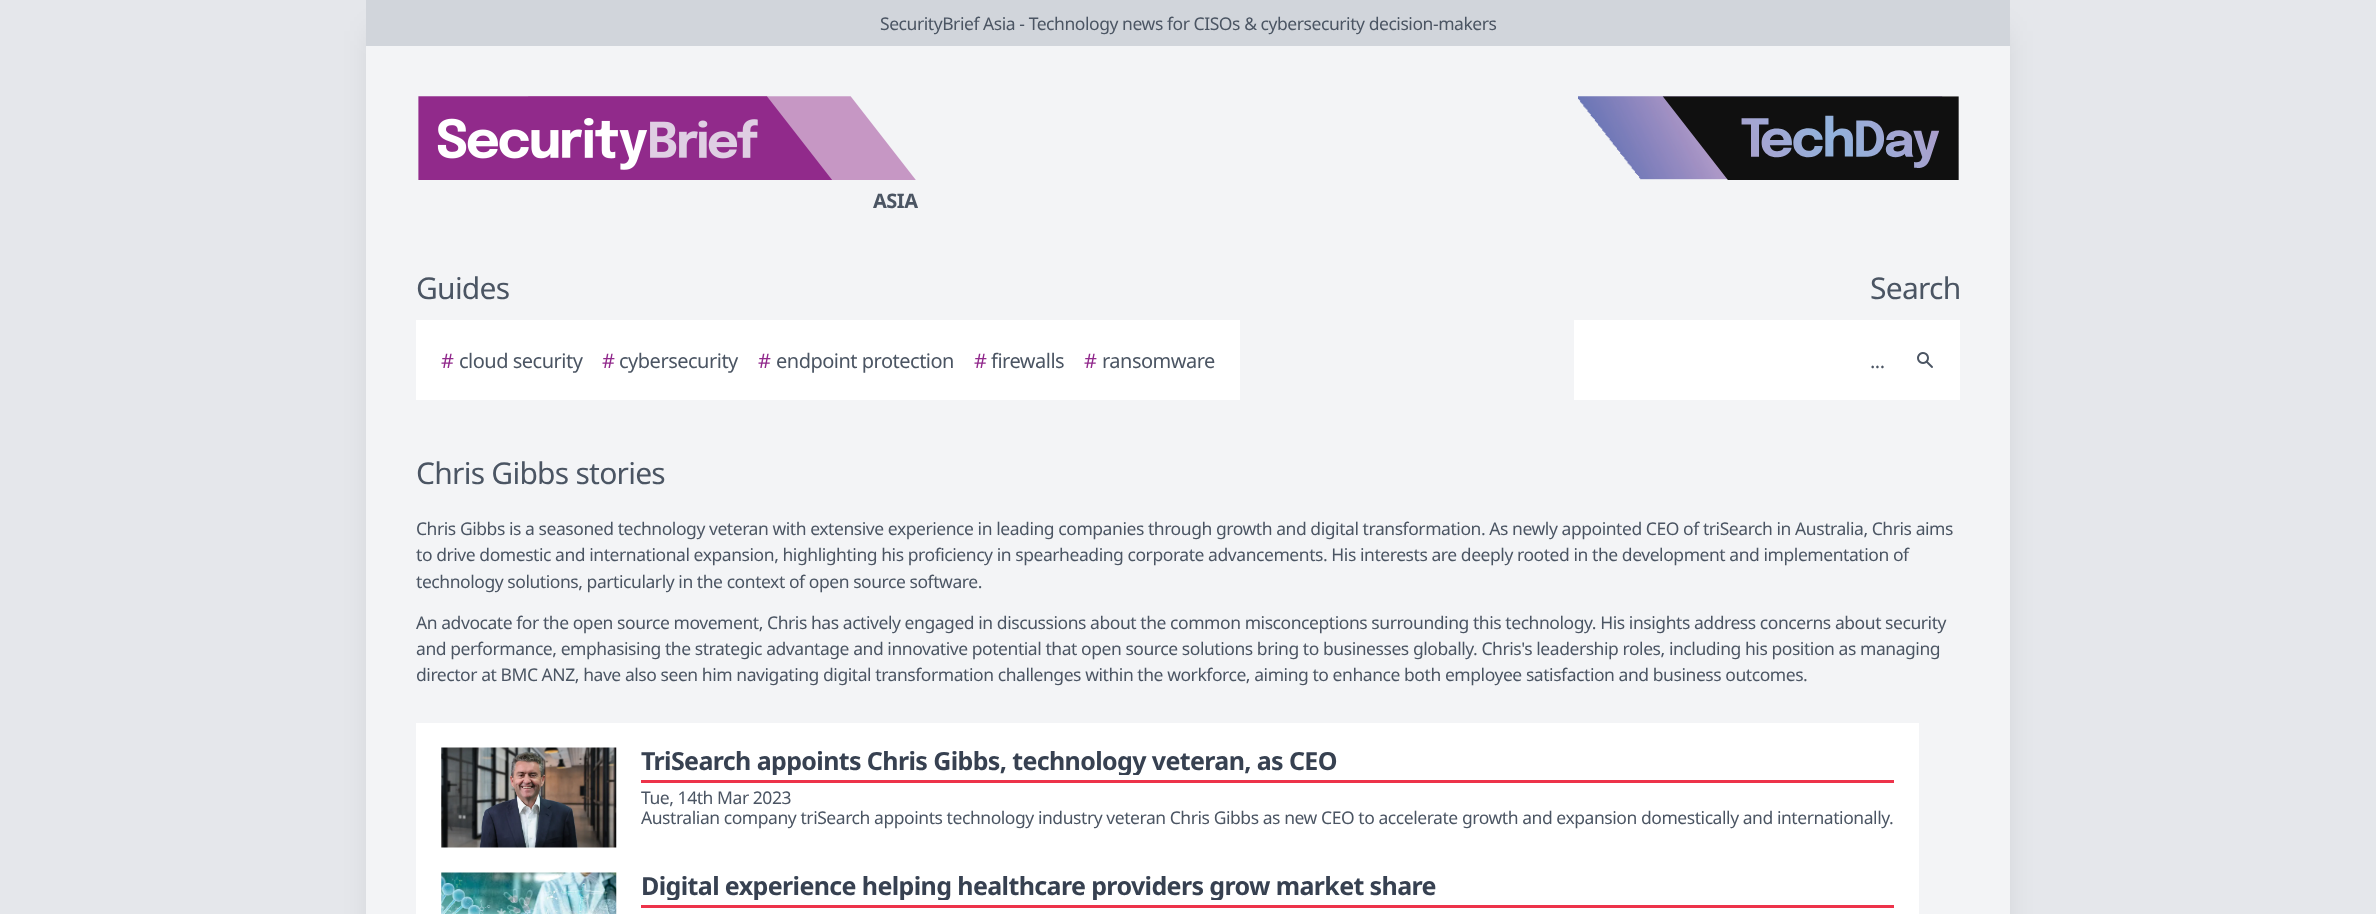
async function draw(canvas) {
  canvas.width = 2376
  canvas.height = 914
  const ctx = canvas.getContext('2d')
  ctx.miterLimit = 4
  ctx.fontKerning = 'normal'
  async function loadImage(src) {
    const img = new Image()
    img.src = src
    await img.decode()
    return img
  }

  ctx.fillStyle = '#e5e7eb'
  ctx.fillRect(0, 0, 2376, 914)
  ctx.fillStyle = '#0000001a'
  ctx.filter = 'blur(15.5px)'
  ctx.beginPath()
  ctx.rect(373, 31, 1631, 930)
  ctx.fill()
  ctx.filter = 'none'
  ctx.fillStyle = '#f3f4f6'
  ctx.fillRect(366, 46, 1644, 868)
  ctx.fillStyle = '#d1d5db'
  ctx.fillRect(366, 0, 1644, 46)
  ctx.letterSpacing = '-0.44px'
  ctx.font = '17.5px Noto Sans'
  ctx.fillStyle = '#4b5563'
  ctx.fillText('SecurityBrief Asia - Technology news for CISOs & cybersecurity decision-makers', 880, 30)
  ctx.drawImage(await loadImage('image0.png'), 1578, 96, 381, 84)
  ctx.drawImage(await loadImage('image1.png'), 418, 96, 498, 84)
  ctx.letterSpacing = '-0.5px'
  ctx.font = 'bold 20px Noto Sans'
  ctx.fillText('ASIA', 873, 208)
  ctx.letterSpacing = '-0.75px'
  ctx.font = '30px Noto Sans'
  ctx.fillText('Guides', 416, 299)
  ctx.fillStyle = '#fff'
  ctx.fillRect(416, 320, 824, 80)
  ctx.letterSpacing = '-0.5px'
  ctx.font = '20px Noto Sans'
  ctx.fillStyle = '#91298c'
  ctx.fillText('#', 441, 368)
  ctx.fillStyle = '#4b5563'
  ctx.fillText('cloud security', 459, 368)
  ctx.fillStyle = '#91298c'
  ctx.fillText('#', 602, 368)
  ctx.fillStyle = '#4b5563'
  ctx.fillText('cybersecurity', 619, 368)
  ctx.fillStyle = '#91298c'
  ctx.fillText('#', 758, 368)
  ctx.fillStyle = '#4b5563'
  ctx.fillText('endpoint protection', 776, 368)
  ctx.fillStyle = '#91298c'
  ctx.fillText('#', 974, 368)
  ctx.fillStyle = '#4b5563'
  ctx.fillText('firewalls', 991, 368)
  ctx.fillStyle = '#91298c'
  ctx.fillText('#', 1084, 368)
  ctx.fillStyle = '#4b5563'
  ctx.fillText('ransomware', 1102, 368)
  ctx.letterSpacing = '-0.75px'
  ctx.font = '30px Noto Sans'
  ctx.fillText('Search', 1870, 299)
  ctx.fillStyle = '#fff'
  ctx.fillRect(1574, 320, 386, 80)
  ctx.letterSpacing = '-0.5px'
  ctx.font = '20px Noto Sans'
  ctx.fillStyle = '#4b5563'
  ctx.fillText('...', 1870, 368)
  ctx.drawImage(await loadImage('image2.png'), 1917, 352, 16, 16)
  ctx.letterSpacing = '-0.75px'
  ctx.font = '30px Noto Sans'
  ctx.fillText('Chris Gibbs stories', 416, 484)
  ctx.letterSpacing = '-0.44px'
  ctx.font = '17.5px Noto Sans'
  ctx.fillText('Chris Gibbs is a seasoned technology veteran with extensive experience in leading companies through growth and digital transformation. As newly appointed CEO of triSearch in Australia, Chris aims', 416, 535)
  ctx.fillText('to drive domestic and international expansion, highlighting his proficiency in spearheading corporate advancements. His interests are deeply rooted in the development and implementation of', 416, 561)
  ctx.fillText('technology solutions, particularly in the context of open source software.', 416, 588)
  ctx.fillText('An advocate for the open source movement, Chris has actively engaged in discussions about the common misconceptions surrounding this technology. His insights address concerns about security', 416, 629)
  ctx.fillText('and performance, emphasising the strategic advantage and innovative potential that open source solutions bring to businesses globally. Chris\'s leadership roles, including his position as managing', 416, 655)
  ctx.fillText('director at BMC ANZ, have also seen him navigating digital transformation challenges within the workforce, aiming to enhance both employee satisfaction and business outcomes.', 416, 681)
  ctx.fillStyle = '#fff'
  ctx.fillRect(416, 723, 1503, 191)
  ctx.drawImage(await loadImage('image3.png'), 441, 747, 176, 101)
  ctx.save()
  ctx.beginPath()
  ctx.rect(641, 748, 1253, 27)
  ctx.clip()
  ctx.letterSpacing = '-0.62px'
  ctx.font = 'bold 25px Noto Sans'
  ctx.fillStyle = '#374151'
  ctx.fillText('TriSearch appoints Chris Gibbs, technology veteran, as CEO', 641, 770)
  ctx.restore()
  ctx.fillStyle = '#ed334a'
  ctx.fillRect(641, 780, 1253, 3)
  ctx.fillStyle = '#4b5563'
  ctx.fillText('Tue, 14th Mar 2023', 641, 804)
  ctx.fillText('Australian company triSearch appoints technology industry veteran Chris Gibbs as new CEO to accelerate growth and expansion domestically and internationally.', 641, 824)
  ctx.drawImage(await loadImage('image4.png'), 441, 872, 176, 42)
  ctx.save()
  ctx.beginPath()
  ctx.rect(641, 873, 1253, 27)
  ctx.clip()
  ctx.letterSpacing = '-0.62px'
  ctx.font = 'bold 25px Noto Sans'
  ctx.fillStyle = '#374151'
  ctx.fillText('Digital experience helping healthcare providers grow market share', 641, 895)
  ctx.restore()
  ctx.fillStyle = '#ed334a'
  ctx.fillRect(641, 905, 1253, 3)
}

draw(document.querySelector('canvas'))
